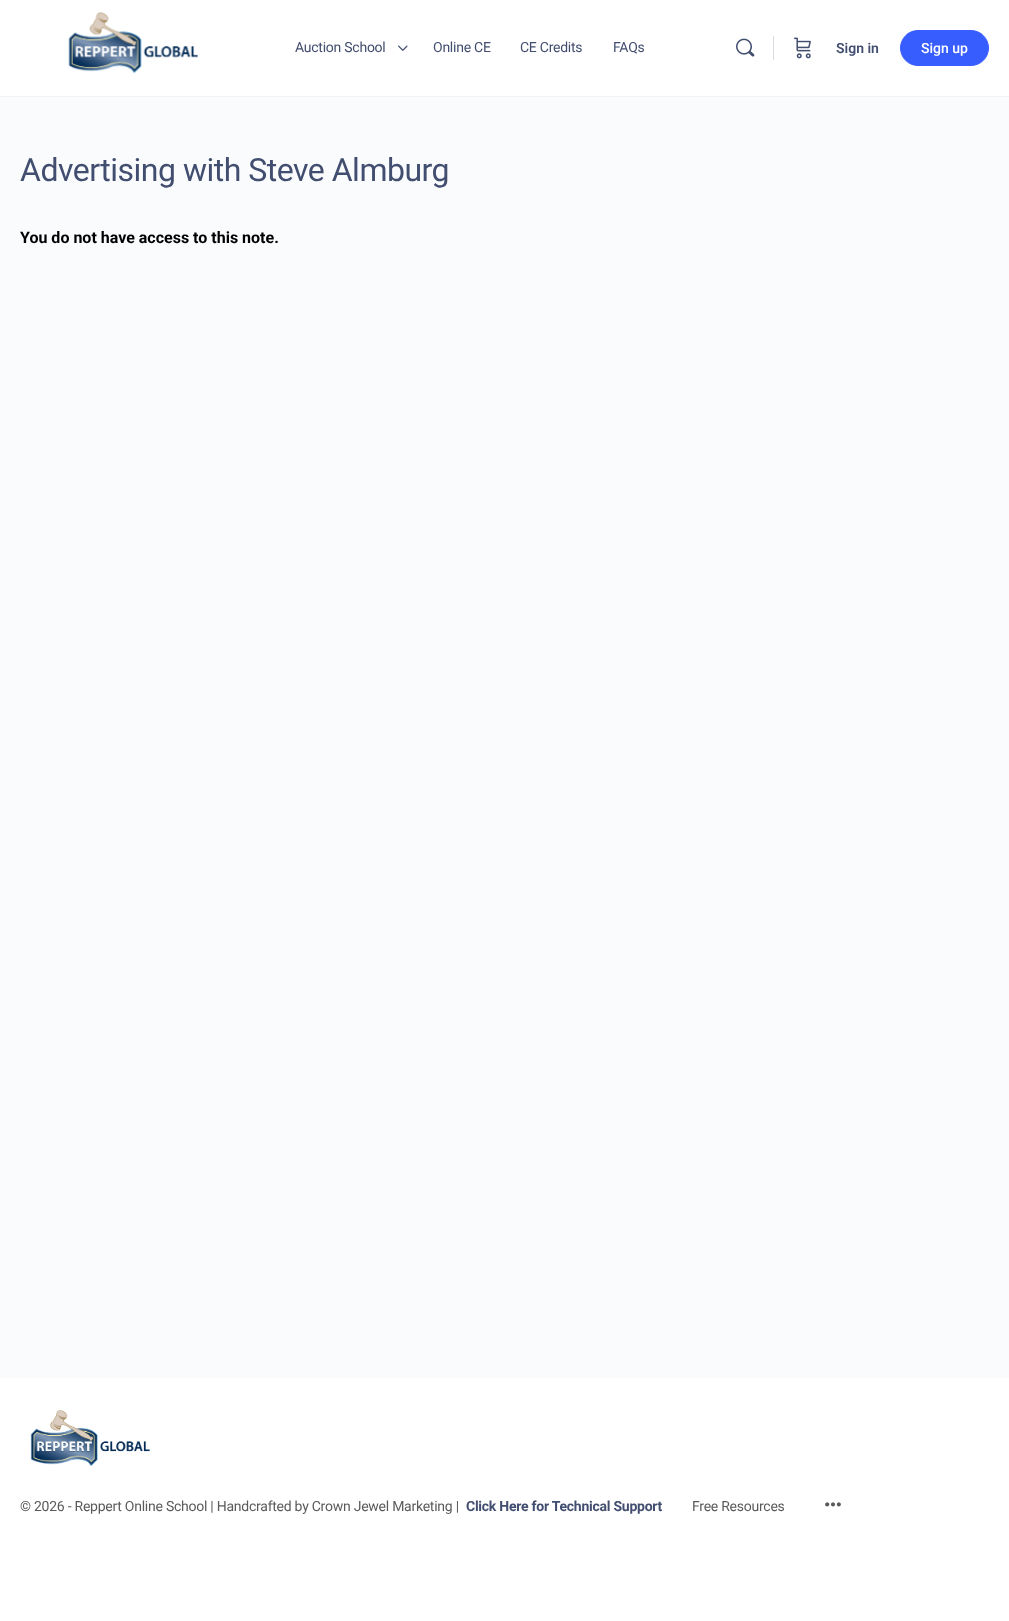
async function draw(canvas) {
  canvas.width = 1009
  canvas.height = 1621
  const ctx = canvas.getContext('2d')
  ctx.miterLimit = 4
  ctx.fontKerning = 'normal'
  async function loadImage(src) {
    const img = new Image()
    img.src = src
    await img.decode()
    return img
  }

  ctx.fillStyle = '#fafbfd'
  ctx.fillRect(0, 0, 1009, 1621)
  ctx.fillStyle = '#f2f3f6'
  ctx.fillRect(0, 96, 1009, 1)
  ctx.fillStyle = '#fff'
  ctx.fillRect(0, 0, 1009, 96)
  ctx.drawImage(await loadImage('image0.png'), 68, 12, 130, 62)
  ctx.letterSpacing = '-0.25px'
  ctx.font = '14px Roboto'
  ctx.fillStyle = '#424e6f'
  ctx.fillText('Auction School', 295, 52)
  ctx.drawImage(await loadImage('image1.png'), 398, 45, 10, 6)
  ctx.fillText('Online CE', 433, 52)
  ctx.fillText('CE Credits', 520, 52)
  ctx.fillText('FAQs', 613, 52)
  ctx.drawImage(await loadImage('image2.png'), 736, 38, 19, 19)
  ctx.fillStyle = '#d9dce2'
  ctx.fillRect(773, 36, 1, 24)
  ctx.drawImage(await loadImage('image3.png'), 794, 37, 17, 22)
  ctx.letterSpacing = '0px'
  ctx.font = '600 14px Roboto'
  ctx.fillStyle = '#424e6f'
  ctx.fillText('Sign in', 836, 53)
  ctx.fillStyle = '#385dff'
  ctx.beginPath()
  ctx.roundRect(900.5, 30.5, 88, 35, 17.5)
  ctx.fill()
  ctx.strokeStyle = '#385dff'
  ctx.stroke()
  ctx.font = '500 14px Roboto'
  ctx.fillStyle = '#fff'
  ctx.fillText('Sign up', 921, 53)
  ctx.letterSpacing = '-0.5px'
  ctx.font = '32px Roboto'
  ctx.fillStyle = '#424e6f'
  ctx.fillText('Advertising with Steve Almburg', 20, 181)
  ctx.letterSpacing = '0px'
  ctx.font = 'bold 16px Roboto'
  ctx.fillStyle = '#000'
  ctx.fillText('You do not have access to this note.', 20, 243)
  ctx.fillStyle = '#fff'
  ctx.fillRect(0, 1378, 1009, 243)
  ctx.drawImage(await loadImage('image4.png'), 30, 1410, 120, 56)
  ctx.letterSpacing = '-0.25px'
  ctx.font = '14px Roboto'
  ctx.fillStyle = '#5a5a5a'
  ctx.fillText('© 2026 - Reppert Online School | Handcrafted by Crown Jewel Marketing |', 20, 1511)
  ctx.font = 'bold 14px Roboto'
  ctx.fillStyle = '#424e6f'
  ctx.fillText('Click Here for Technical Support', 466, 1511)
  ctx.font = '14px Roboto'
  ctx.fillStyle = '#5a5a5a'
  ctx.fillText('Free Resources', 692, 1511)
  ctx.drawImage(await loadImage('image5.png'), 825, 1502, 16, 5)
}

draw(document.querySelector('canvas'))
